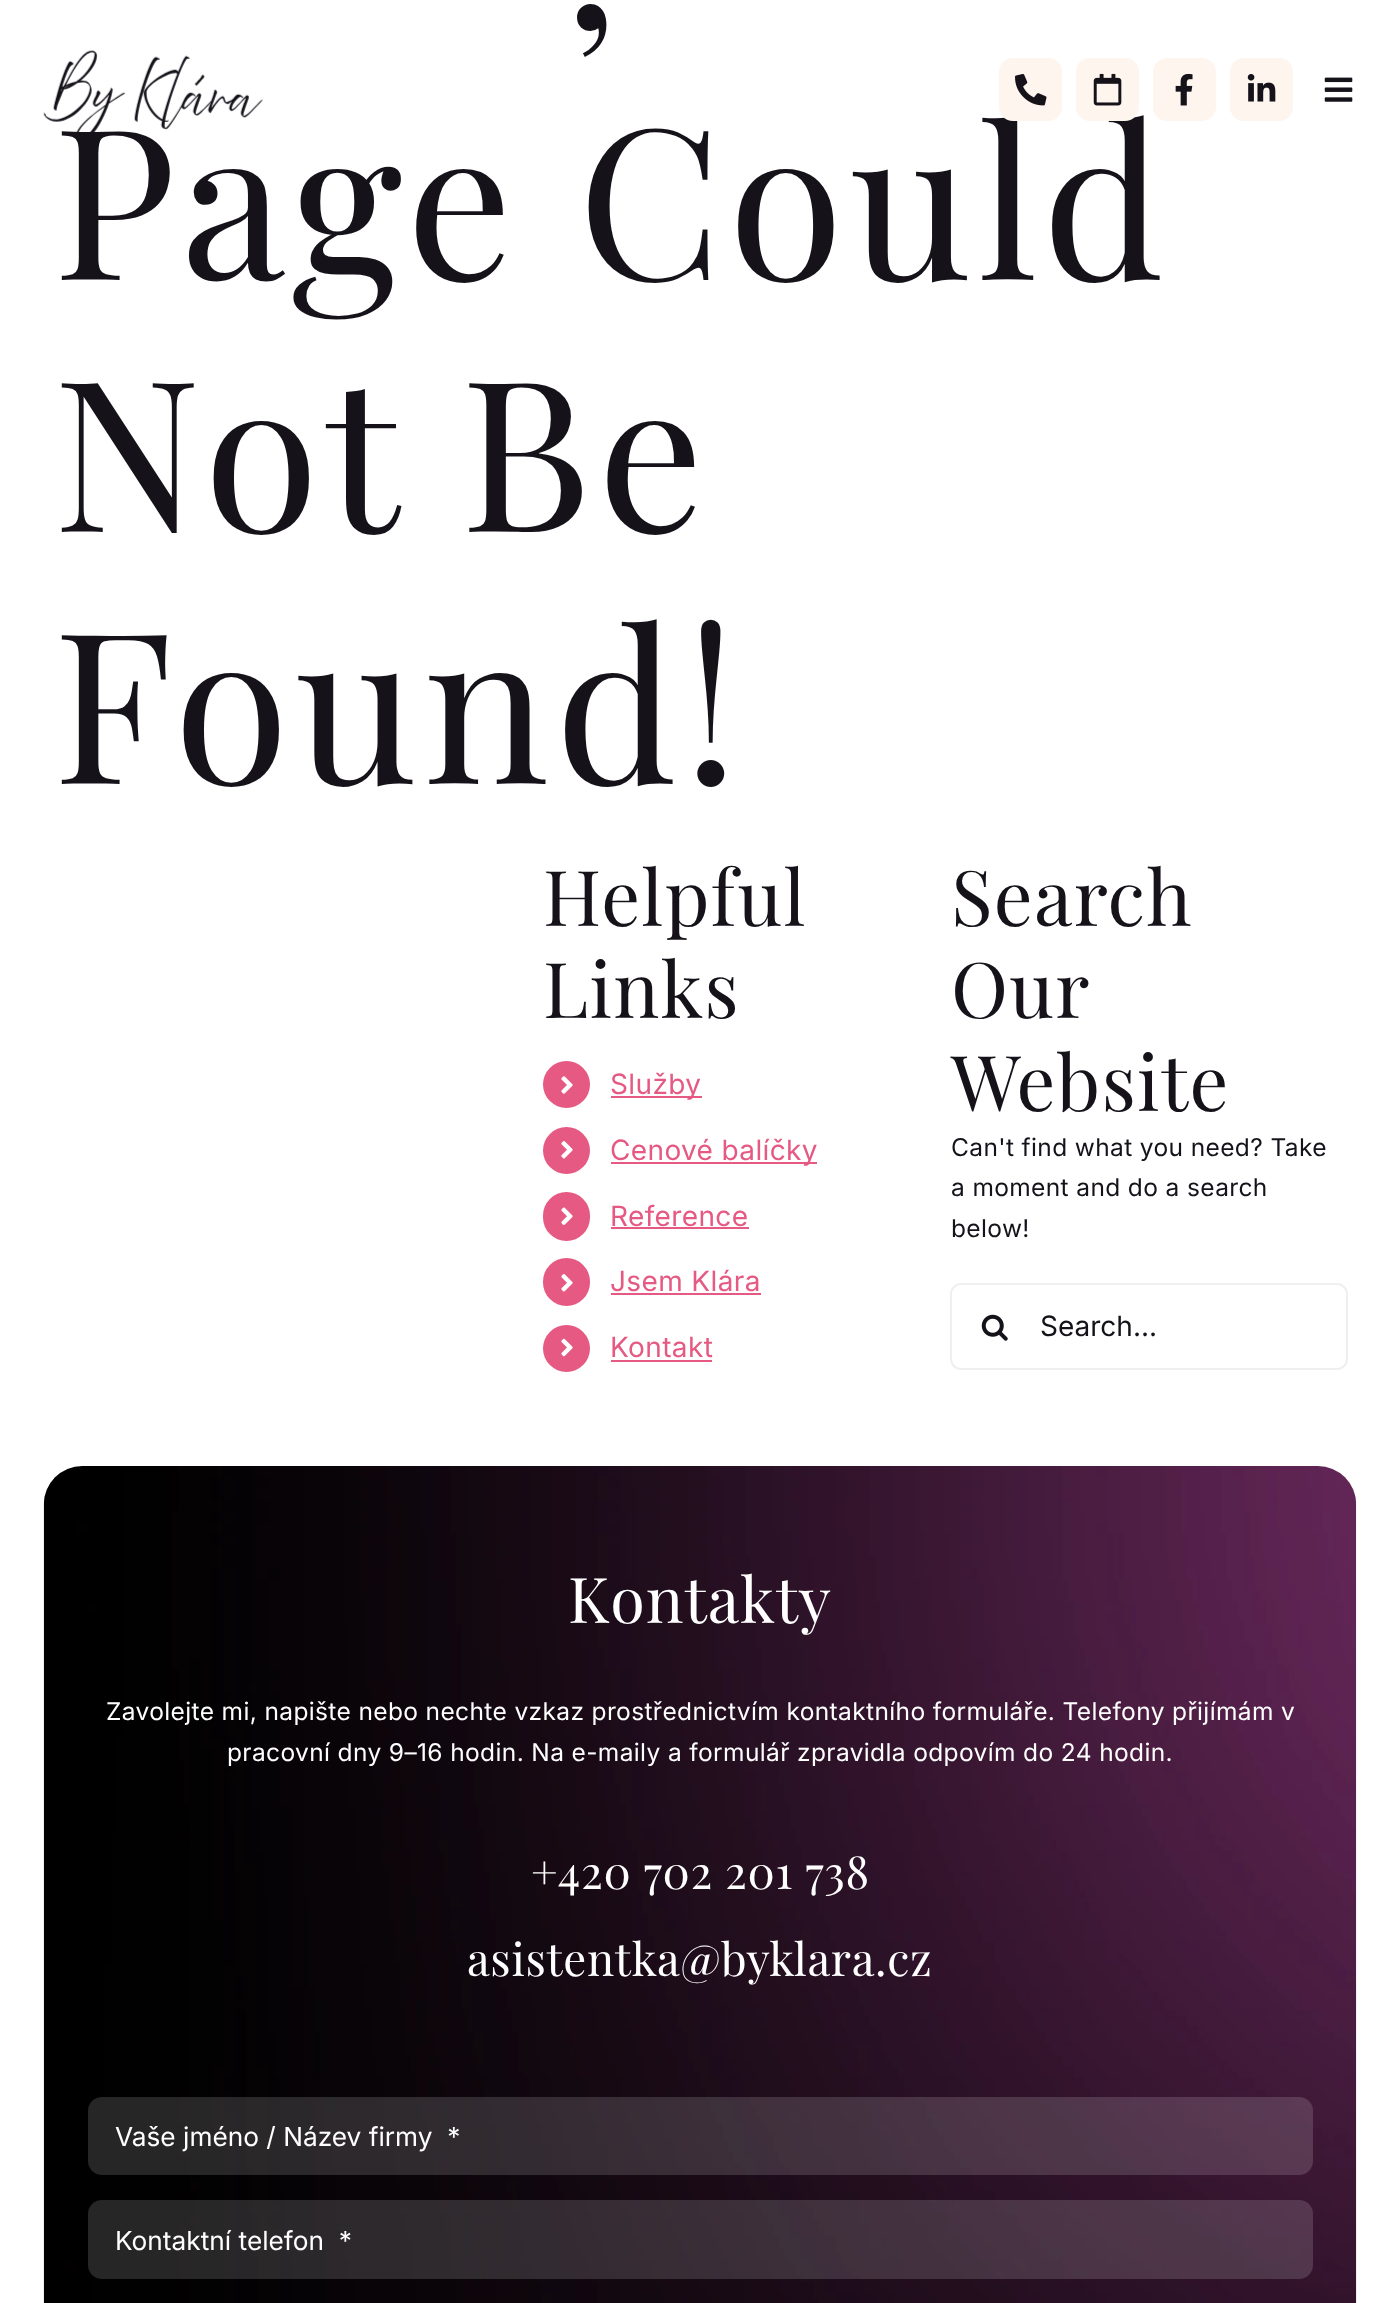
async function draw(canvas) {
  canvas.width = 1400
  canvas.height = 2303
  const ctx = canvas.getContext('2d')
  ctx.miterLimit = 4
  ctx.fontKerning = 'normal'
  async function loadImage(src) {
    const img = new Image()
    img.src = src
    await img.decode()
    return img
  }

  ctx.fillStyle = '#fff'
  ctx.fillRect(0, 0, 1400, 2303)
  ctx.letterSpacing = '6.25px'
  ctx.font = '210px Playfair Display'
  ctx.fillStyle = '#15121a'
  ctx.fillText(',', 564, 28)
  ctx.fillText('Page Could', 53, 280)
  ctx.fillText('Not Be', 53, 532)
  ctx.fillText('Found!', 53, 784)
  ctx.letterSpacing = '1.25px'
  ctx.font = '77px Playfair Display'
  ctx.fillText('Helpful', 543, 926)
  ctx.fillText('Links', 543, 1018)
  ctx.fillStyle = '#e55982'
  ctx.beginPath()
  ctx.arc(566.5, 1084.5, 23.5, 0, 2 * Math.PI)
  ctx.fill()
  ctx.drawImage(await loadImage('image0.png'), 561, 1076, 12, 18)
  ctx.fillRect(611, 1096, 91, 2)
  ctx.letterSpacing = '0.37px'
  ctx.font = '28px Inter'
  ctx.fillText('Služby', 610, 1094)
  ctx.beginPath()
  ctx.arc(566.5, 1150.5, 23.5, 0, 2 * Math.PI)
  ctx.fill()
  ctx.drawImage(await loadImage('image1.png'), 561, 1141, 12, 18)
  ctx.fillRect(611, 1162, 206, 2)
  ctx.fillText('Cenové balíčky', 610, 1160)
  ctx.beginPath()
  ctx.roundRect(543, 1192, 47, 49, 23.5)
  ctx.fill()
  ctx.drawImage(await loadImage('image2.png'), 561, 1207, 12, 18)
  ctx.fillText('Reference', 610, 1226)
  ctx.fillRect(611, 1227, 138, 2)
  ctx.beginPath()
  ctx.roundRect(543, 1258, 47, 48, 23.5)
  ctx.fill()
  ctx.drawImage(await loadImage('image1.png'), 561, 1274, 12, 18)
  ctx.fillText('Jsem Klára', 610, 1291)
  ctx.fillRect(611, 1293, 150, 2)
  ctx.beginPath()
  ctx.arc(566.5, 1348.5, 23.5, 0, 2 * Math.PI)
  ctx.fill()
  ctx.drawImage(await loadImage('image3.png'), 561, 1338, 12, 19)
  ctx.fillText('Kontakt', 610, 1357)
  ctx.fillRect(611, 1360, 101, 2)
  ctx.letterSpacing = '1.25px'
  ctx.font = '77px Playfair Display'
  ctx.fillStyle = '#15121a'
  ctx.fillText('Search', 951, 926)
  ctx.fillText('Our', 951, 1018)
  ctx.fillText('Website', 951, 1111)
  ctx.letterSpacing = '0.37px'
  ctx.font = '24.5px Inter'
  ctx.fillText('Can\'t find what you need? Take', 951, 1156)
  ctx.fillText('a moment and do a search', 951, 1196)
  ctx.fillText('below!', 951, 1237)
  ctx.beginPath()
  ctx.roundRect(951, 1284, 396, 85, 10)
  ctx.strokeStyle = '#efeff2'
  ctx.lineWidth = 2
  ctx.stroke()
  ctx.drawImage(await loadImage('image4.png'), 981, 1314, 27, 27)
  ctx.letterSpacing = '0px'
  ctx.font = '28px Inter'
  ctx.fillText('Search...', 1040, 1336)
  ctx.drawImage(await loadImage('image5.png'), 43, 50, 220, 82)
  ctx.fillStyle = '#fdf5ee'
  ctx.beginPath()
  ctx.roundRect(999, 58, 63, 63, 14)
  ctx.fill()
  ctx.drawImage(await loadImage('image6.png'), 1015, 74, 32, 32)
  ctx.beginPath()
  ctx.roundRect(1076, 58, 63, 63, 14)
  ctx.fill()
  ctx.drawImage(await loadImage('image7.png'), 1093, 73, 29, 33)
  ctx.beginPath()
  ctx.roundRect(1153, 58, 63, 63, 14)
  ctx.fill()
  ctx.drawImage(await loadImage('image8.png'), 1175, 73, 18, 33)
  ctx.beginPath()
  ctx.roundRect(1230, 58, 63, 63, 14)
  ctx.fill()
  ctx.drawImage(await loadImage('image9.png'), 1247, 74, 29, 28)
  ctx.drawImage(await loadImage('image10.png'), 1324, 77, 29, 25)
  ctx.drawImage(await loadImage('image11.png'), 43, 1466, 1314, 837)
  ctx.letterSpacing = '1px'
  ctx.font = '63px Playfair Display'
  ctx.fillStyle = '#fff'
  ctx.fillText('Kontakty', 568, 1623)
  ctx.letterSpacing = '0.37px'
  ctx.font = '24.5px Inter'
  ctx.fillText('Zavolejte mi, napište nebo nechte vzkaz prostřednictvím kontaktního formuláře. Telefony přijímám v', 106, 1720)
  ctx.fillText('pracovní dny 9–16 hodin. Na e-maily a formulář zpravidla odpovím do 24 hodin.', 227, 1761)
  ctx.letterSpacing = '0.7px'
  ctx.font = '45.5px Playfair Display'
  ctx.fillText('+420 702 201 738', 531, 1889)
  ctx.fillText('asistentka@byklara.cz', 467, 1976)
  ctx.fillStyle = '#ffffff26'
  ctx.beginPath()
  ctx.roundRect(88, 2097, 1225, 78, 14)
  ctx.fill()
  ctx.letterSpacing = '0px'
  ctx.font = '26.25px Inter'
  ctx.fillStyle = '#fff'
  ctx.fillText('Vaše jméno / Název firmy  *', 115, 2146)
  ctx.fillStyle = '#ffffff26'
  ctx.beginPath()
  ctx.roundRect(88, 2200, 1225, 79, 14)
  ctx.fill()
  ctx.fillStyle = '#fff'
  ctx.fillText('Kontaktní telefon  *', 115, 2250)
}

draw(document.querySelector('canvas'))
